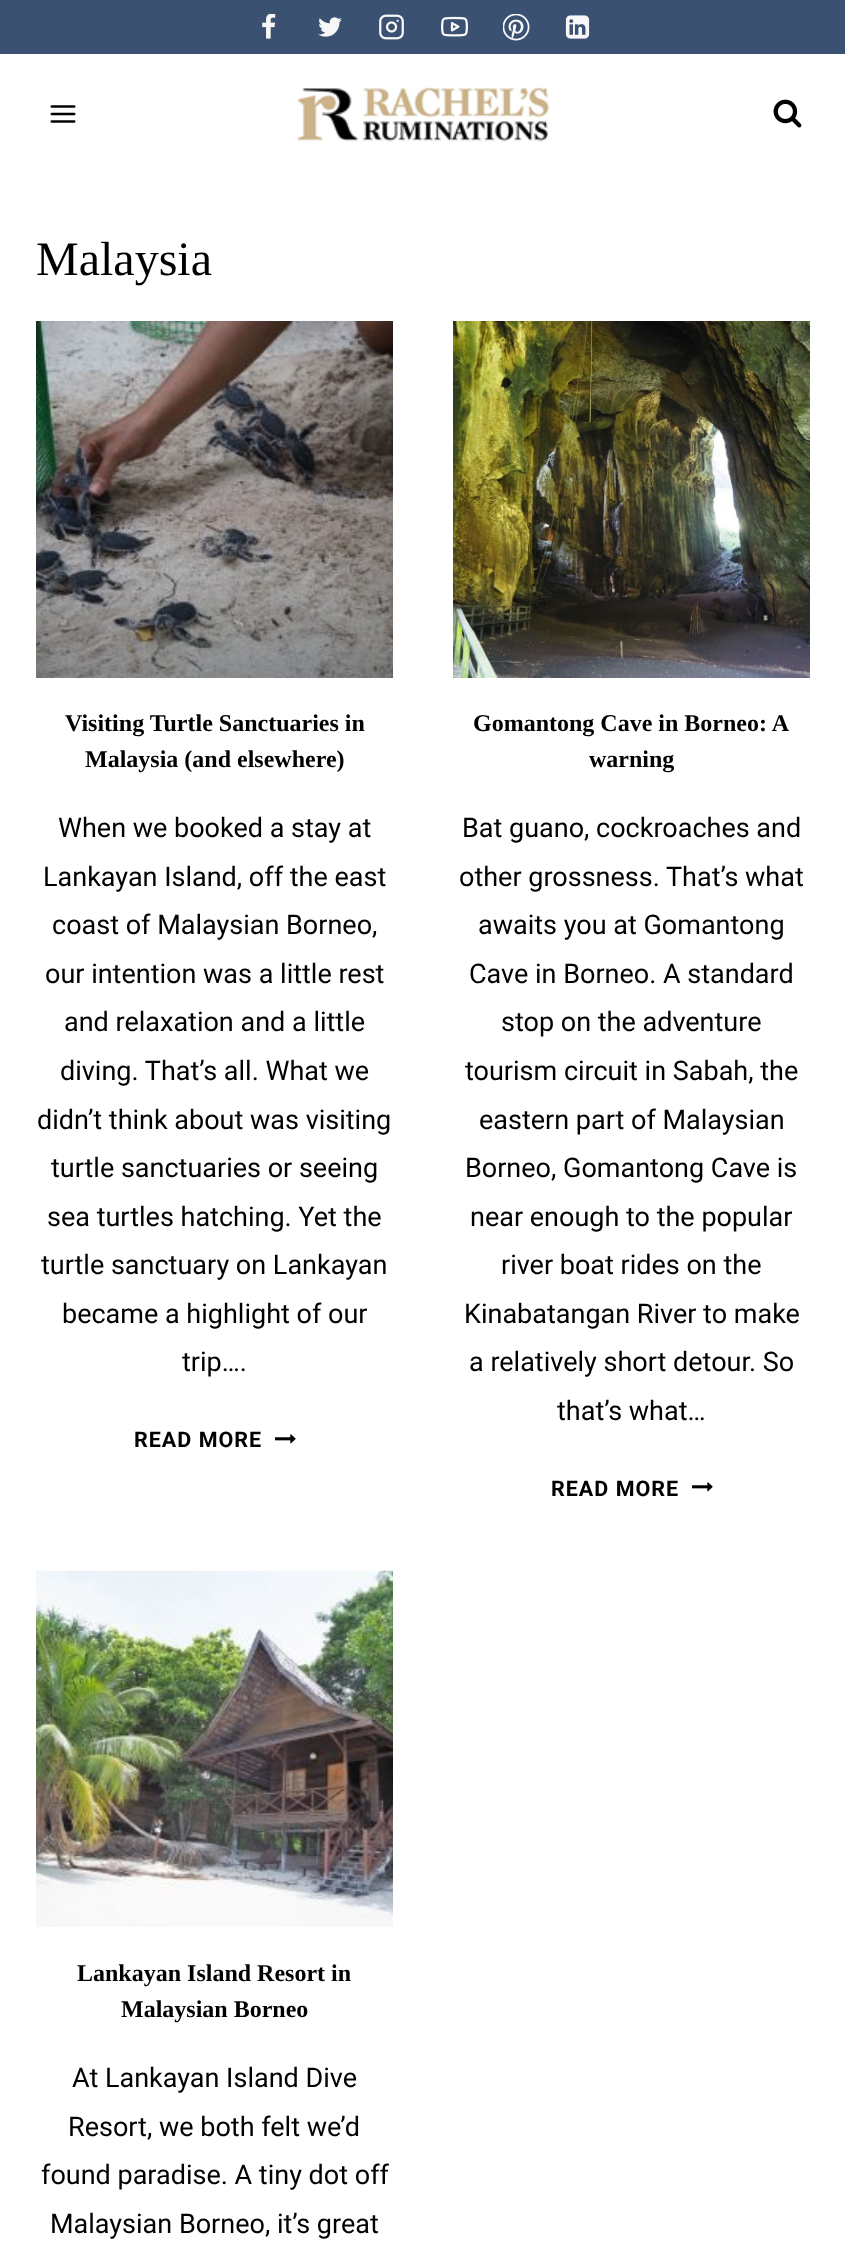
async function draw(canvas) {
  canvas.width = 845
  canvas.height = 2242
  const ctx = canvas.getContext('2d')
  ctx.miterLimit = 4
  ctx.fontKerning = 'normal'
  async function loadImage(src) {
    const img = new Image()
    img.src = src
    await img.decode()
    return img
  }

  ctx.fillStyle = '#fff'
  ctx.fillRect(0, 0, 845, 2242)
  ctx.fillStyle = '#3a5171'
  ctx.fillRect(0, 0, 845, 54)
  ctx.drawImage(await loadImage('image0.png'), 262, 14, 14, 25)
  ctx.drawImage(await loadImage('image1.png'), 318, 17, 24, 20)
  ctx.drawImage(await loadImage('image2.png'), 379, 14, 25, 26)
  ctx.drawImage(await loadImage('image3.png'), 441, 16, 27, 21)
  ctx.drawImage(await loadImage('image4.png'), 503, 14, 27, 27)
  ctx.drawImage(await loadImage('image5.png'), 565, 15, 25, 24)
  ctx.drawImage(await loadImage('image6.png'), 50, 105, 26, 18)
  ctx.drawImage(await loadImage('image7.png'), 297, 87, 253, 55)
  ctx.drawImage(await loadImage('image8.png'), 773, 99, 29, 29)
  ctx.font = '48px Liberation Serif'
  ctx.fillStyle = '#000'
  ctx.fillText('Malaysia', 36, 275)
  ctx.drawImage(await loadImage('image9.png'), 36, 321, 357, 357)
  ctx.font = 'bold 24px Liberation Serif'
  ctx.fillText('Visiting Turtle Sanctuaries in', 65, 731)
  ctx.fillText('Malaysia (and elsewhere)', 85, 767)
  ctx.font = '27px Roboto'
  ctx.fillText('When we booked a stay at', 58, 837)
  ctx.fillText('Lankayan Island, off the east', 43, 886)
  ctx.fillText('coast of Malaysian Borneo,', 52, 934)
  ctx.fillText('our intention was a little rest', 45, 983)
  ctx.fillText('and relaxation and a little', 64, 1031)
  ctx.fillText('diving. That’s all. What we', 60, 1080)
  ctx.fillText('didn’t think about was visiting', 37, 1129)
  ctx.fillText('turtle sanctuaries or seeing', 51, 1177)
  ctx.fillText('sea turtles hatching. Yet the', 47, 1226)
  ctx.fillText('turtle sanctuary on Lankayan', 41, 1274)
  ctx.fillText('became a highlight of our', 62, 1323)
  ctx.fillText('trip….', 182, 1371)
  ctx.letterSpacing = '1px'
  ctx.font = 'bold 21.5px Roboto'
  ctx.fillText('READ MORE', 134, 1447)
  ctx.drawImage(await loadImage('image10.png'), 275, 1434, 21, 10)
  ctx.drawImage(await loadImage('image11.png'), 453, 321, 357, 357)
  ctx.letterSpacing = '0px'
  ctx.font = 'bold 24px Liberation Serif'
  ctx.fillText('Gomantong Cave in Borneo: A', 473, 731)
  ctx.fillText('warning', 589, 767)
  ctx.font = '27px Roboto'
  ctx.fillText('Bat guano, cockroaches and', 462, 837)
  ctx.fillText('other grossness. That’s what', 459, 886)
  ctx.fillText('awaits you at Gomantong', 478, 934)
  ctx.fillText('Cave in Borneo. A standard', 469, 983)
  ctx.fillText('stop on the adventure', 501, 1031)
  ctx.fillText('tourism circuit in Sabah, the', 465, 1080)
  ctx.fillText('eastern part of Malaysian', 479, 1129)
  ctx.fillText('Borneo, Gomantong Cave is', 465, 1177)
  ctx.fillText('near enough to the popular', 470, 1226)
  ctx.fillText('river boat rides on the', 501, 1274)
  ctx.fillText('Kinabatangan River to make', 464, 1323)
  ctx.fillText('a relatively short detour. So', 469, 1371)
  ctx.fillText('that’s what…', 557, 1420)
  ctx.letterSpacing = '1px'
  ctx.font = 'bold 21.5px Roboto'
  ctx.fillText('READ MORE', 551, 1496)
  ctx.drawImage(await loadImage('image10.png'), 692, 1482, 21, 10)
  ctx.drawImage(await loadImage('image12.png'), 36, 1570, 357, 357)
  ctx.letterSpacing = '0px'
  ctx.font = 'bold 24px Liberation Serif'
  ctx.fillText('Lankayan Island Resort in', 77, 1981)
  ctx.fillText('Malaysian Borneo', 121, 2017)
  ctx.font = '27px Roboto'
  ctx.fillText('At Lankayan Island Dive', 72, 2087)
  ctx.fillText('Resort, we both felt we’d', 68, 2136)
  ctx.fillText('found paradise. A tiny dot off', 41, 2184)
  ctx.fillText('Malaysian Borneo, it’s great', 50, 2233)
}

draw(document.querySelector('canvas'))
